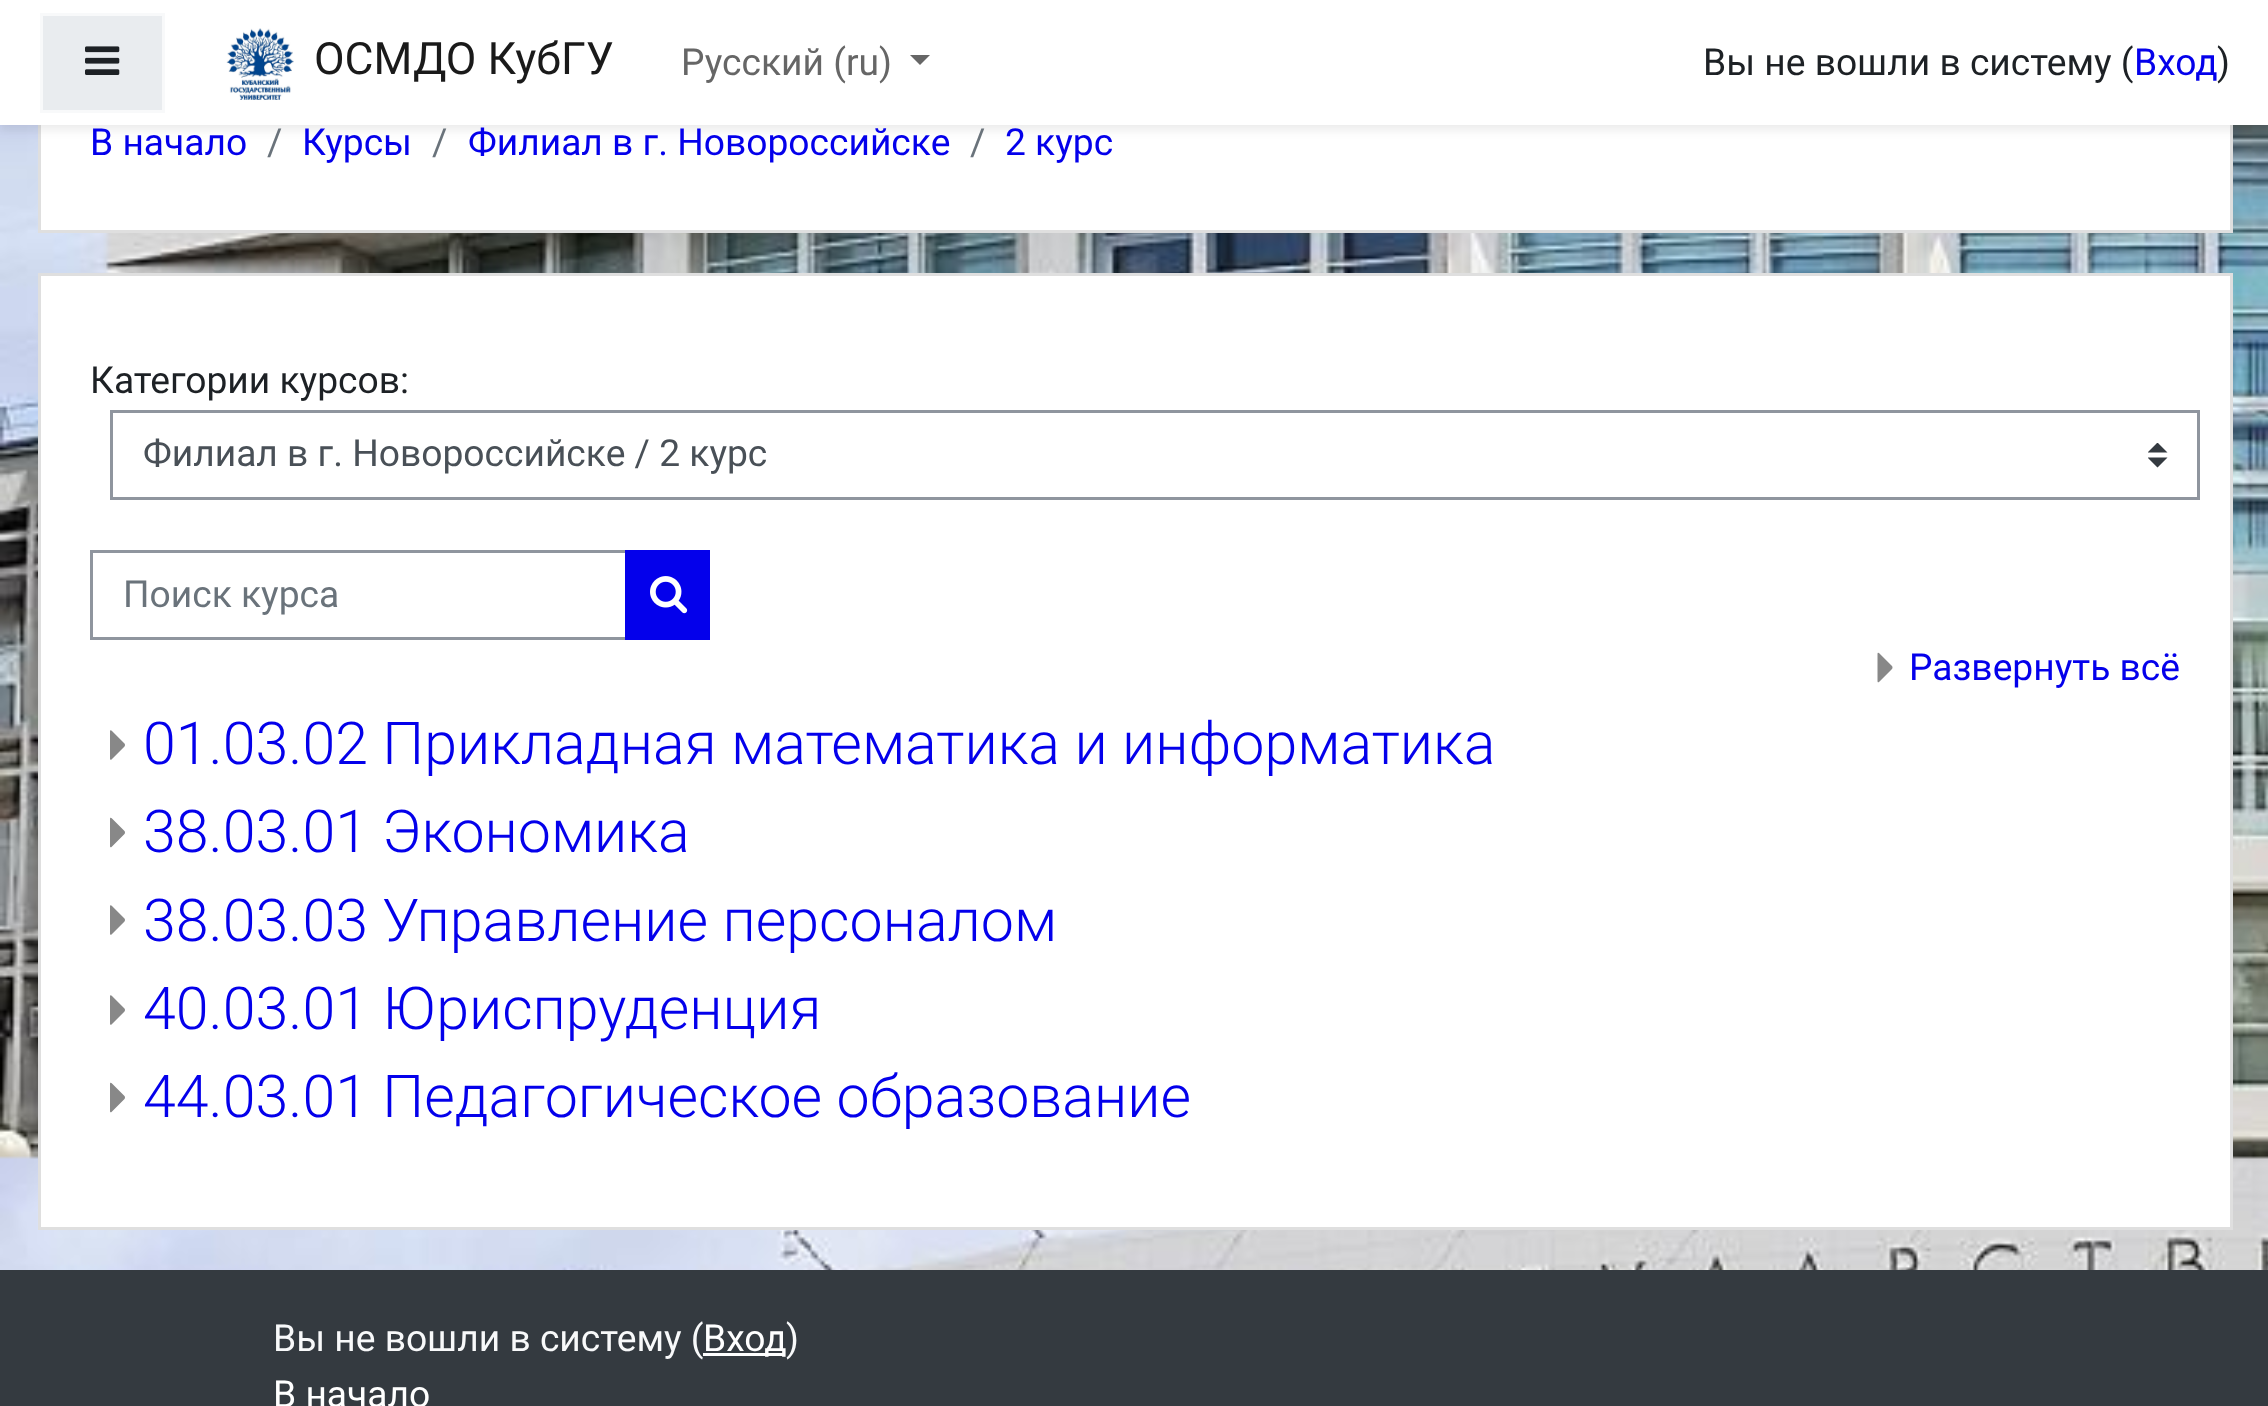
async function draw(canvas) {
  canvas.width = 2268
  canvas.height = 1406
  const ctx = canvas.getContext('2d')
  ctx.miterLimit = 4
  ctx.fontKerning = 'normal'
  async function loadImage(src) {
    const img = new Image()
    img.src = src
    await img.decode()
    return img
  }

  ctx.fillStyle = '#fff'
  ctx.fillRect(0, 0, 2268, 1406)
  ctx.drawImage(await loadImage('image0.png'), 0, 125, 2268, 1145)
  ctx.fillRect(41, 125, 2189, 105)
  ctx.strokeStyle = '#dfdfdf'
  ctx.lineWidth = 3
  ctx.strokeRect(39.5, -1.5, 2192, 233)
  ctx.fillStyle = '#00000014'
  ctx.filter = 'blur(5px)'
  ctx.beginPath()
  ctx.rect(0, 5, 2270, 125)
  ctx.fill()
  ctx.filter = 'none'
  ctx.fillStyle = '#fff'
  ctx.fillRect(0, 0, 2268, 125)
  ctx.fillStyle = '#e9ecef'
  ctx.beginPath()
  ctx.rect(41.5, 14.5, 122, 97)
  ctx.fill()
  ctx.strokeStyle = '#f8f9fa'
  ctx.stroke()
  ctx.drawImage(await loadImage('image1.png'), 85, 46, 35, 29)
  ctx.drawImage(await loadImage('image2.png'), 226, 28, 68, 72)
  ctx.font = '44.5px Roboto'
  ctx.fillStyle = '#1a1a1a'
  ctx.fillText('ОСМДО КубГУ', 314, 74)
  ctx.font = '37.2px Roboto'
  ctx.fillStyle = '#666'
  ctx.fillText('Русский (ru)', 681, 75)
  ctx.beginPath()
  ctx.moveTo(910, 55)
  ctx.lineTo(930, 55)
  ctx.lineTo(920, 65)
  ctx.closePath()
  ctx.fill()
  ctx.fillStyle = '#1d2125'
  ctx.fillText('Вы не вошли в систему (', 1703, 75)
  ctx.fillStyle = '#0400eb'
  ctx.fillText('Вход', 2134, 75)
  ctx.fillStyle = '#1d2125'
  ctx.fillText(')', 2217, 75)
  ctx.fillStyle = '#0400eb'
  ctx.fillText('В начало', 90, 155)
  ctx.fillStyle = '#6a737b'
  ctx.fillText('/', 267, 155)
  ctx.fillStyle = '#0400eb'
  ctx.fillText('Курсы', 302, 155)
  ctx.fillStyle = '#6a737b'
  ctx.fillText('/', 432, 155)
  ctx.fillStyle = '#0400eb'
  ctx.fillText('Филиал в г. Новороссийске', 468, 155)
  ctx.fillStyle = '#6a737b'
  ctx.fillText('/', 970, 155)
  ctx.fillStyle = '#0400eb'
  ctx.fillText('2 курс', 1005, 155)
  ctx.fillStyle = '#fff'
  ctx.beginPath()
  ctx.rect(39.5, 274.5, 2192, 954)
  ctx.fill()
  ctx.strokeStyle = '#dfdfdf'
  ctx.stroke()
  ctx.fillStyle = '#1d2125'
  ctx.fillText('Категории курсов:', 90, 393)
  ctx.save()
  ctx.beginPath()
  ctx.rect(2148, 443, 20, 25)
  ctx.clip()
  ctx.fillStyle = '#343a40'
  ctx.beginPath()
  ctx.moveTo(2157.5, 442.5)
  ctx.lineTo(2147.5, 452.5)
  ctx.lineTo(2167.5, 452.5)
  ctx.closePath()
  ctx.moveTo(2157.5, 467.5)
  ctx.lineTo(2147.5, 457.5)
  ctx.lineTo(2167.5, 457.5)
  ctx.closePath()
  ctx.fill()
  ctx.restore()
  ctx.strokeStyle = '#8f959e'
  ctx.strokeRect(111.5, 411.5, 2087, 87)
  ctx.fillStyle = '#495057'
  ctx.fillText('Филиал в г. Новороссийске / 2 курс', 143, 466)
  ctx.strokeRect(91.5, 551.5, 535, 87)
  ctx.fillStyle = '#6a737b'
  ctx.fillText('Поиск курса', 123, 607)
  ctx.fillStyle = '#0400eb'
  ctx.fillRect(625, 550, 85, 90)
  ctx.drawImage(await loadImage('image3.png'), 650, 576, 38, 38)
  ctx.drawImage(await loadImage('image4.png'), 1877, 652, 16, 31)
  ctx.fillText('Развернуть всё', 1909, 680)
  ctx.drawImage(await loadImage('image5.png'), 110, 730, 15, 30)
  ctx.font = '300 59.1px Roboto'
  ctx.fillText('01.03.02 Прикладная математика и информатика', 143, 764)
  ctx.drawImage(await loadImage('image6.png'), 110, 817, 15, 31)
  ctx.fillText('38.03.01 Экономика', 143, 852)
  ctx.drawImage(await loadImage('image5.png'), 110, 905, 15, 30)
  ctx.fillText('38.03.03 Управление персоналом', 143, 941)
  ctx.drawImage(await loadImage('image5.png'), 110, 995, 15, 30)
  ctx.fillText('40.03.01 Юриспруденция', 143, 1029)
  ctx.drawImage(await loadImage('image6.png'), 110, 1082, 15, 31)
  ctx.fillText('44.03.01 Педагогическое образование', 143, 1117)
  ctx.fillStyle = '#343a40'
  ctx.fillRect(0, 1270, 2268, 136)
  ctx.font = '37.2px Roboto'
  ctx.fillStyle = '#f8f9fa'
  ctx.fillText('Вы не вошли в систему (', 273, 1351)
  ctx.fillStyle = '#fff'
  ctx.fillRect(703, 1353, 82, 3)
  ctx.fillText('Вход', 703, 1351)
  ctx.fillStyle = '#f8f9fa'
  ctx.fillText(')', 786, 1351)
  ctx.fillStyle = '#fff'
  ctx.fillText('В начало', 273, 1407)
}

draw(document.querySelector('canvas'))
